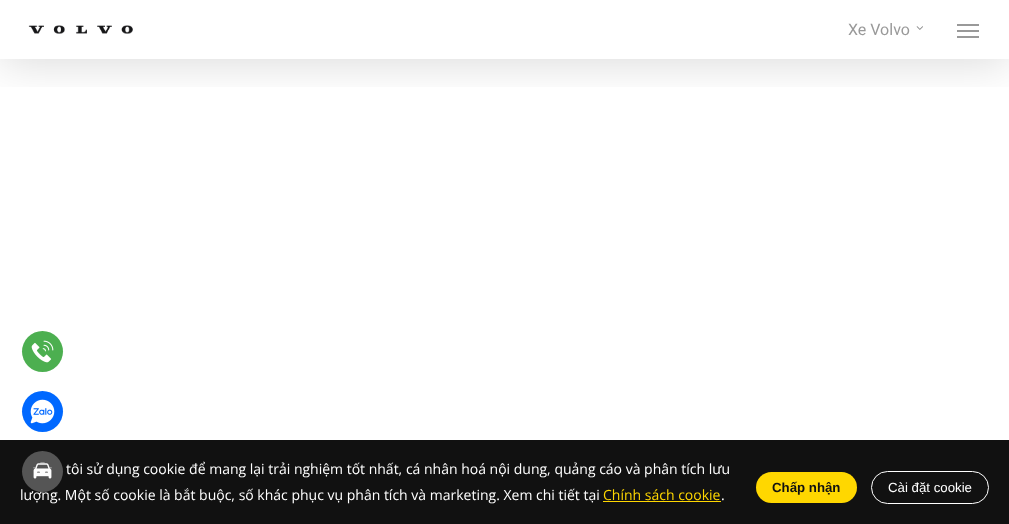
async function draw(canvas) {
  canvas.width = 1009
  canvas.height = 524
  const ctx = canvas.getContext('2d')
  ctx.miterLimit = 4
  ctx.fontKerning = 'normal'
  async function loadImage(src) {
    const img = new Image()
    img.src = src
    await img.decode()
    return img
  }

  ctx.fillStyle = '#fff'
  ctx.fillRect(0, 0, 1009, 524)
  ctx.save()
  ctx.beginPath()
  ctx.rect(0, 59, 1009, 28)
  ctx.clip()
  ctx.fillStyle = '#00000026'
  ctx.filter = 'blur(22.5px)'
  ctx.beginPath()
  ctx.rect(0, 3, 1009, 59)
  ctx.fill()
  ctx.filter = 'none'
  ctx.restore()
  ctx.drawImage(await loadImage('image0.png'), 28, 25, 105, 9)
  ctx.font = '16px Roboto'
  ctx.fillStyle = '#999'
  ctx.fillText('Xe Volvo', 848, 35)
  ctx.drawImage(await loadImage('image1.png'), 916, 26, 7, 4)
  ctx.fillRect(957, 24, 22, 2)
  ctx.fillRect(957, 36, 22, 2)
  ctx.fillRect(957, 30, 22, 2)
  ctx.fillStyle = '#4caf50'
  ctx.beginPath()
  ctx.arc(42.5, 351.5, 20.5, 0, 2 * Math.PI)
  ctx.fill()
  ctx.drawImage(await loadImage('image2.png'), 31, 340, 23, 23)
  ctx.fillStyle = '#0068ff'
  ctx.beginPath()
  ctx.arc(42.5, 411.5, 20.5, 0, 2 * Math.PI)
  ctx.fill()
  ctx.drawImage(await loadImage('image3.png'), 30, 399, 25, 25)
  ctx.fillStyle = '#111'
  ctx.fillRect(0, 440, 1009, 84)
  ctx.font = '14px Open Sans'
  ctx.fillStyle = '#fff'
  ctx.fillText('lượng. Một số cookie là bắt buộc, số khác phục vụ phân tích và marketing. Xem chi tiết tại', 20, 500)
  ctx.fillStyle = '#555'
  ctx.beginPath()
  ctx.arc(42.5, 471.5, 20.5, 0, 2 * Math.PI)
  ctx.fill()
  ctx.drawImage(await loadImage('image4.png'), 33, 462, 19, 17)
  ctx.fillStyle = '#fff'
  ctx.fillText('tôi sử dụng cookie để mang lại trải nghiệm tốt nhất, cá nhân hoá nội dung, quảng cáo và phân tích lưu', 66, 474)
  ctx.fillStyle = '#ffd700'
  ctx.fillText('Chính sách cookie', 603, 500)
  ctx.fillRect(603, 501, 118, 1)
  ctx.fillStyle = '#fff'
  ctx.fillText('.', 721, 500)
  ctx.fillStyle = '#ffd700'
  ctx.beginPath()
  ctx.roundRect(756, 472, 101, 31, 15.5)
  ctx.fill()
  ctx.font = 'bold 13.25px Liberation Sans'
  ctx.fillStyle = '#111'
  ctx.fillText('Chấp nhận', 772, 492)
  ctx.beginPath()
  ctx.roundRect(871.5, 471.5, 117, 32, 16)
  ctx.strokeStyle = '#fff'
  ctx.stroke()
  ctx.font = '13.25px Liberation Sans'
  ctx.fillStyle = '#fff'
  ctx.fillText('Cài đặt cookie', 888, 492)
}

draw(document.querySelector('canvas'))
